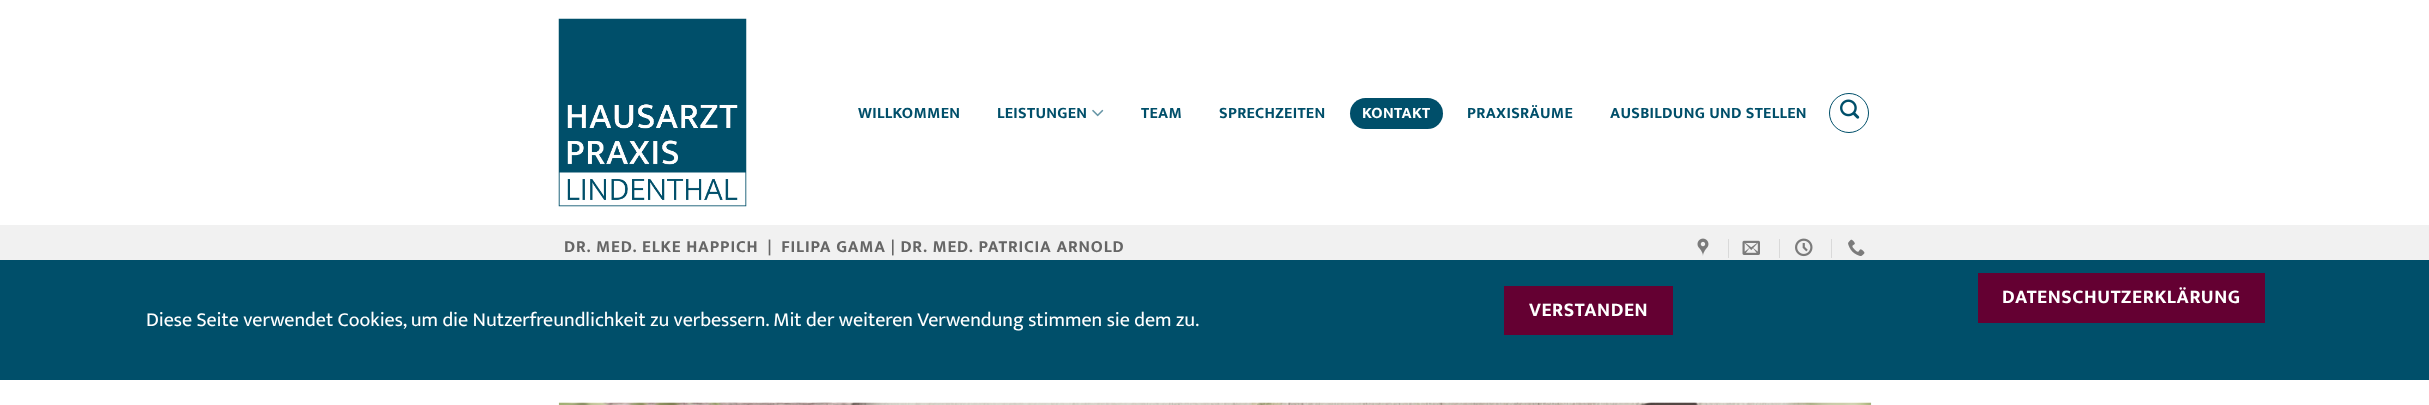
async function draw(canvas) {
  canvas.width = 2429
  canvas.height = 405
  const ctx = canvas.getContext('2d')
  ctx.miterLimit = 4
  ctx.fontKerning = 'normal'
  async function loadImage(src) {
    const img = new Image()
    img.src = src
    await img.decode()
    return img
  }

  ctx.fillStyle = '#fff'
  ctx.fillRect(0, 0, 2429, 405)
  ctx.drawImage(await loadImage('image0.png'), 558, 18, 189, 189)
  ctx.letterSpacing = '0.3px'
  ctx.font = 'bold 16px Mukta Mahee'
  ctx.fillStyle = '#004f6a'
  ctx.fillText('WILLKOMMEN', 858, 118)
  ctx.fillText('LEISTUNGEN', 997, 118)
  ctx.drawImage(await loadImage('image1.png'), 1092, 109, 12, 8)
  ctx.fillText('TEAM', 1141, 118)
  ctx.fillText('SPRECHZEITEN', 1219, 118)
  ctx.beginPath()
  ctx.roundRect(1350, 98, 93, 31, 15.5)
  ctx.fill()
  ctx.fillStyle = '#fff'
  ctx.fillText('KONTAKT', 1362, 118)
  ctx.fillStyle = '#004f6a'
  ctx.fillText('PRAXISRÄUME', 1467, 118)
  ctx.fillText('AUSBILDUNG UND STELLEN', 1610, 118)
  ctx.beginPath()
  ctx.arc(1849, 113, 19.5, 0, 2 * Math.PI)
  ctx.strokeStyle = '#004f6a'
  ctx.stroke()
  ctx.drawImage(await loadImage('image2.png'), 1840, 99, 20, 20)
  ctx.fillStyle = '#f1f1f1'
  ctx.fillRect(0, 225, 2429, 35)
  ctx.letterSpacing = '0.85px'
  ctx.font = 'bold 17px Mukta Mahee'
  ctx.fillStyle = '#666'
  ctx.fillText('DR. MED. ELKE HAPPICH  |  FILIPA GAMA | DR. MED. PATRICIA ARNOLD', 564, 252)
  ctx.drawImage(await loadImage('image3.png'), 1697, 238, 12, 18)
  ctx.fillStyle = '#d9d9d9'
  ctx.fillRect(1728, 239, 1, 19)
  ctx.drawImage(await loadImage('image4.png'), 1742, 240, 18, 15)
  ctx.fillRect(1779, 239, 1, 19)
  ctx.drawImage(await loadImage('image5.png'), 1795, 238, 18, 19)
  ctx.fillRect(1831, 239, 1, 19)
  ctx.drawImage(await loadImage('image6.png'), 1848, 239, 17, 17)
  ctx.drawImage(await loadImage('image7.png'), 558, 402, 1314, 3)
  ctx.fillStyle = '#bebebe33'
  ctx.fillRect(559, 403, 1312, 2)
  ctx.fillStyle = '#004f6a'
  ctx.fillRect(0, 260, 2429, 120)
  ctx.fillStyle = '#640032'
  ctx.fillRect(1978, 273, 287, 50)
  ctx.letterSpacing = '0.6px'
  ctx.font = 'bold 19.4px Mukta Mahee'
  ctx.fillStyle = '#fff'
  ctx.fillText('DATENSCHUTZERKLÄRUNG', 2002, 303)
  ctx.letterSpacing = '0px'
  ctx.font = '20px Mukta Mahee'
  ctx.fillText('Diese Seite verwendet Cookies, um die Nutzerfreundlichkeit zu verbessern. Mit der weiteren Verwendung stimmen sie dem zu.', 146, 326)
  ctx.fillStyle = '#640032'
  ctx.fillRect(1504, 286, 169, 49)
  ctx.letterSpacing = '0.6px'
  ctx.font = 'bold 19.4px Mukta Mahee'
  ctx.fillStyle = '#fff'
  ctx.fillText('VERSTANDEN', 1529, 316)
}

draw(document.querySelector('canvas'))
